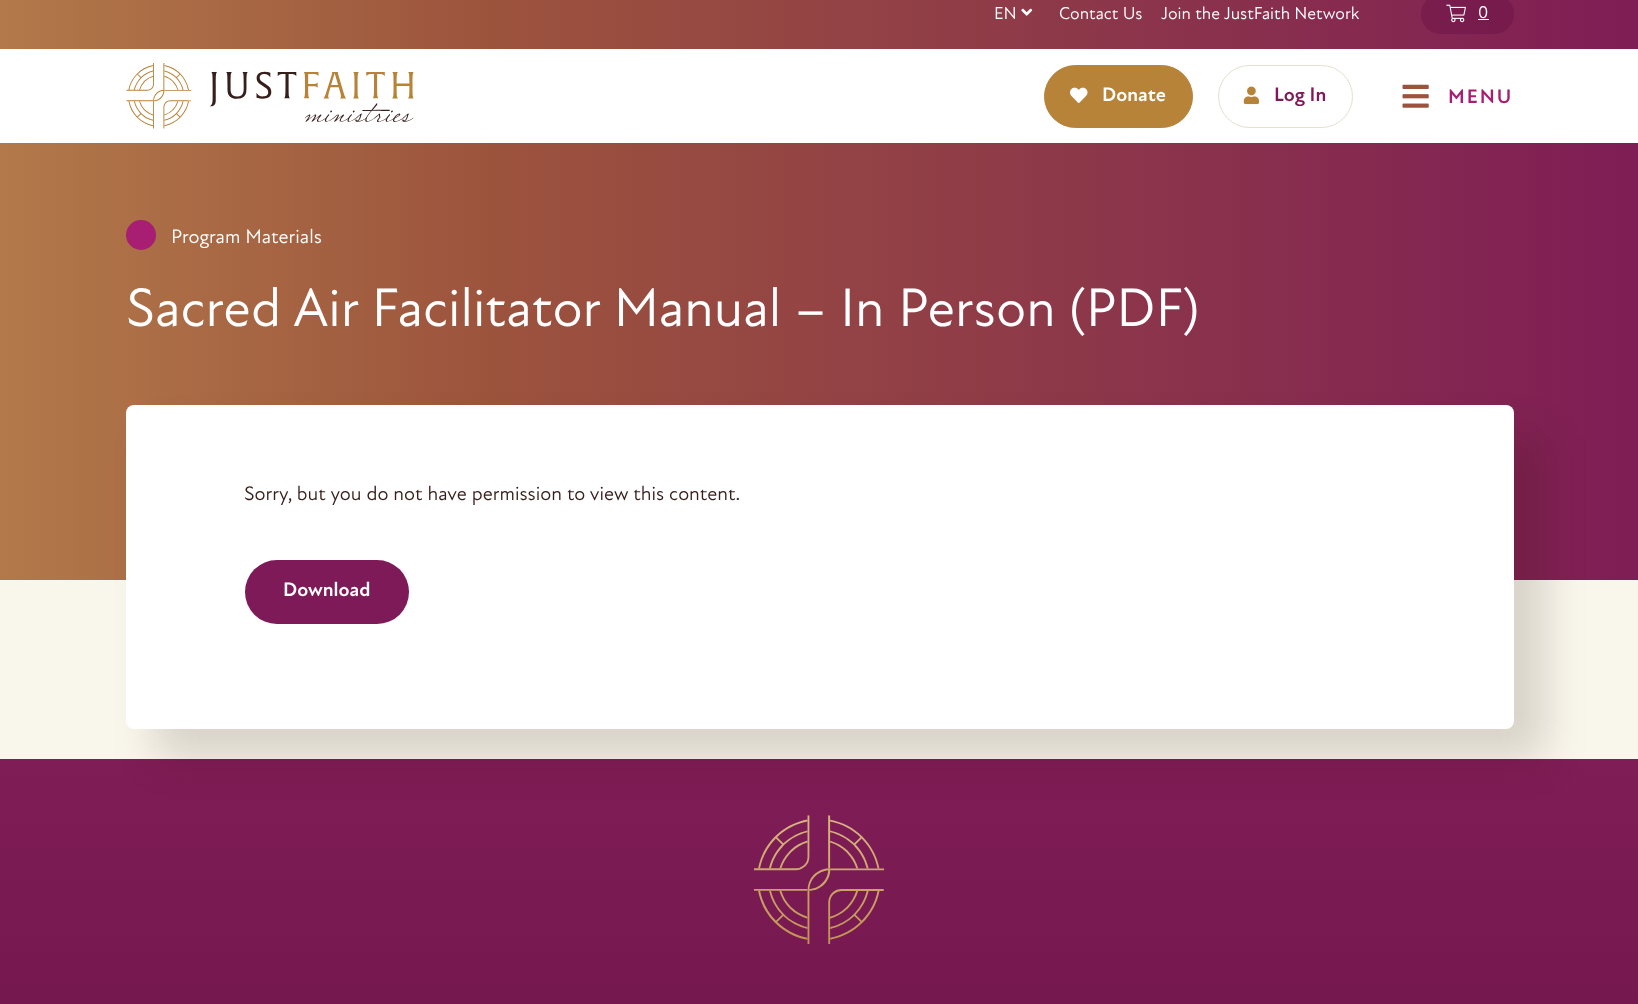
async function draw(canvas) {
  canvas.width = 1638
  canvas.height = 1004
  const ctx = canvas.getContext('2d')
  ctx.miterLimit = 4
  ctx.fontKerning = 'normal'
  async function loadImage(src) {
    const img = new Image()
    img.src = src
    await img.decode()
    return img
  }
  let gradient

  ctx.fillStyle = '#fff'
  ctx.fillRect(0, 0, 1638, 1004)
  gradient = ctx.createLinearGradient(-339, 14, 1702, 14)
  gradient.addColorStop(0, '#c19352')
  gradient.addColorStop(0.41, '#9c533d')
  gradient.addColorStop(1, '#7d1a57')
  ctx.fillStyle = gradient
  ctx.fillRect(0, 0, 1638, 49)
  ctx.font = '17.5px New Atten'
  ctx.fillStyle = '#fff'
  ctx.fillText('EN', 994, 19)
  ctx.drawImage(await loadImage('image0.png'), 1021, 8, 12, 8)
  ctx.fillText('Contact Us', 1059, 19)
  ctx.fillText('Join the JustFaith Network', 1161, 19)
  ctx.fillStyle = '#660f4566'
  ctx.beginPath()
  ctx.roundRect(1421, -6, 93, 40, 20)
  ctx.fill()
  ctx.drawImage(await loadImage('image1.png'), 1446, 4, 20, 19)
  ctx.fillStyle = '#fff'
  ctx.fillText('0', 1478, 18)
  ctx.fillRect(1478, 19, 11, 1)
  ctx.drawImage(await loadImage('image2.png'), 126, 63, 288, 66)
  ctx.fillStyle = '#b78339'
  ctx.beginPath()
  ctx.roundRect(1044.5, 65.5, 148, 62, 31)
  ctx.fill()
  ctx.strokeStyle = '#b78339'
  ctx.stroke()
  ctx.drawImage(await loadImage('image3.png'), 1070, 87, 18, 16)
  ctx.font = 'bold 20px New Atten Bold'
  ctx.fillStyle = '#fff'
  ctx.fillText('Donate', 1102, 101)
  ctx.beginPath()
  ctx.roundRect(1218.5, 65.5, 134, 62, 31)
  ctx.strokeStyle = '#e4e0ce'
  ctx.stroke()
  ctx.drawImage(await loadImage('image4.png'), 1243, 86, 17, 19)
  ctx.fillStyle = '#7d1a57'
  ctx.fillText('Log In', 1274, 101)
  ctx.drawImage(await loadImage('image5.png'), 1402, 84, 27, 24)
  ctx.letterSpacing = '2px'
  ctx.fillStyle = '#a71e72'
  ctx.fillText('MENU', 1448, 103)
  gradient = ctx.createLinearGradient(-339, 361, 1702, 361)
  gradient.addColorStop(0, '#c19352')
  gradient.addColorStop(0.41, '#9c533d')
  gradient.addColorStop(1, '#7d1a57')
  ctx.fillStyle = gradient
  ctx.fillRect(0, 143, 1638, 437)
  ctx.fillStyle = '#a71e72'
  ctx.beginPath()
  ctx.arc(141, 235, 15, 0, 2 * Math.PI)
  ctx.fill()
  ctx.letterSpacing = '0px'
  ctx.font = '20px New Atten'
  ctx.fillStyle = '#fff'
  ctx.fillText('Program Materials', 171, 243)
  ctx.font = '55px New Atten'
  ctx.fillText('Sacred Air Facilitator Manual – In Person (PDF)', 126, 326)
  ctx.fillStyle = '#f9f6ec'
  ctx.fillRect(0, 580, 1638, 179)
  gradient = ctx.createLinearGradient(819, 759, 819, 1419)
  gradient.addColorStop(0, '#7f1d56')
  gradient.addColorStop(1, '#660f45')
  ctx.fillStyle = gradient
  ctx.fillRect(0, 759, 1638, 245)
  ctx.drawImage(await loadImage('image6.png'), 754, 815, 131, 129)
  ctx.fillStyle = '#21090126'
  ctx.filter = 'blur(21px)'
  ctx.beginPath()
  ctx.roundRect(156, 435, 1388, 324, 8)
  ctx.fill()
  ctx.filter = 'none'
  ctx.fillStyle = '#fff'
  ctx.beginPath()
  ctx.roundRect(126, 405, 1388, 324, 8)
  ctx.fill()
  ctx.font = '20px New Atten'
  ctx.fillStyle = '#361e1b'
  ctx.fillText('Sorry, but you do not have permission to view this content.', 244, 500)
  ctx.fillStyle = '#7d1a57'
  ctx.beginPath()
  ctx.roundRect(245, 560, 164, 64, 32)
  ctx.fill()
  ctx.font = 'bold 20px New Atten Bold'
  ctx.fillStyle = '#fff'
  ctx.fillText('Download', 283, 596)
}

draw(document.querySelector('canvas'))
